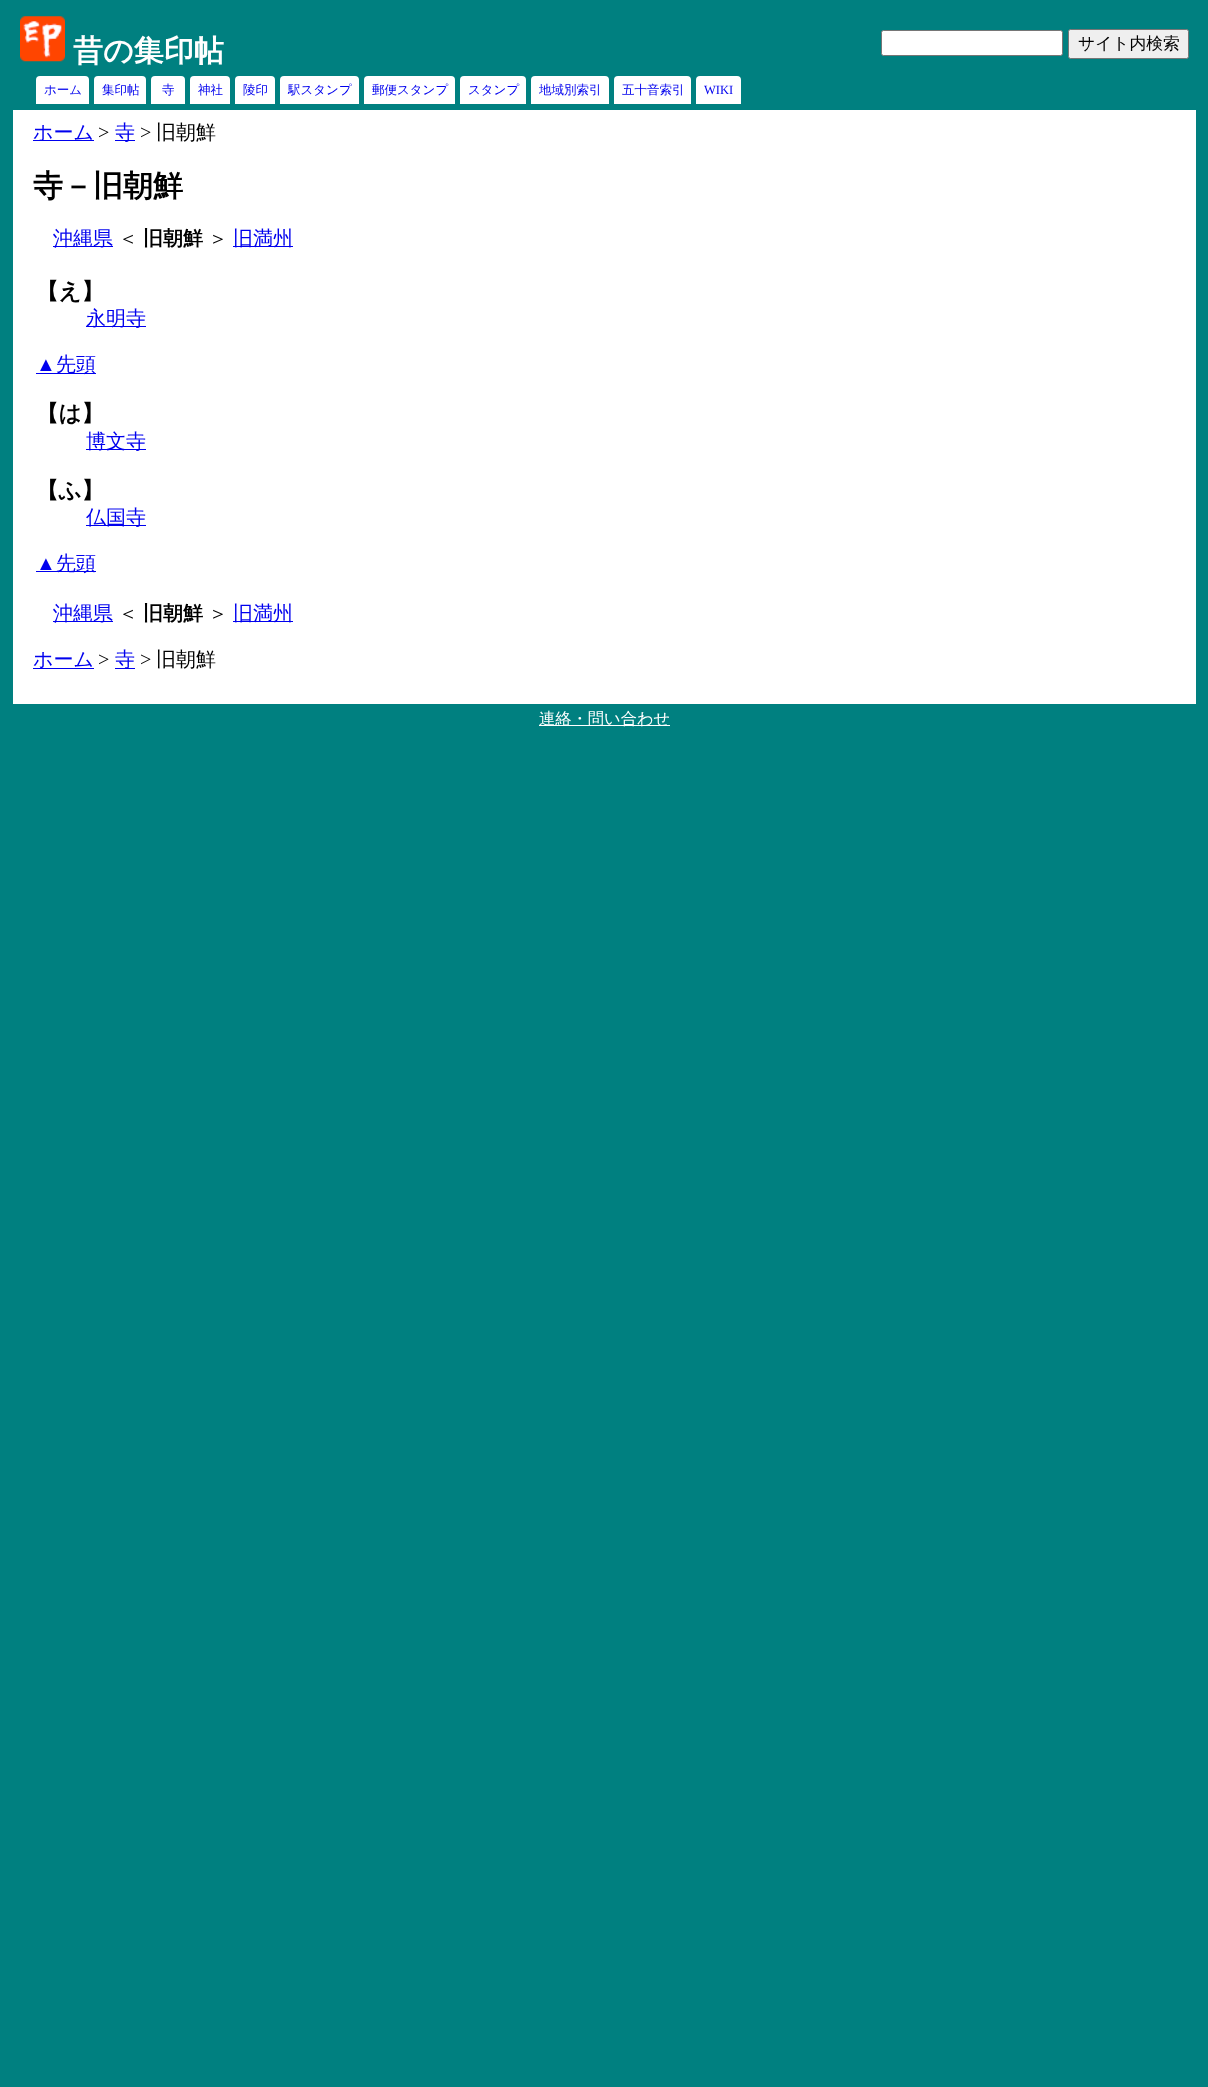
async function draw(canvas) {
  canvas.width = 1208
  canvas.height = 2087
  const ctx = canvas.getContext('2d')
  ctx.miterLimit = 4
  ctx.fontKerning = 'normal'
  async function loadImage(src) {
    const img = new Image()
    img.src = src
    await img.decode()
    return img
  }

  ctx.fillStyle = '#008080'
  ctx.fillRect(0, 0, 1208, 2087)
  ctx.drawImage(await loadImage('image0.png'), 20, 16, 45, 46)
  ctx.font = 'bold 30px WenQuanYi Zen Hei'
  ctx.fillStyle = '#fff'
  ctx.fillText('昔の集印帖', 73, 61)
  ctx.beginPath()
  ctx.roundRect(881.5, 30.5, 181, 25, 2)
  ctx.fill()
  ctx.strokeStyle = '#767676'
  ctx.stroke()
  ctx.fillStyle = '#efefef'
  ctx.beginPath()
  ctx.roundRect(1068.5, 29.5, 120, 29, 2)
  ctx.fill()
  ctx.stroke()
  ctx.font = '500 16.75px WenQuanYi Zen Hei'
  ctx.fillStyle = '#000'
  ctx.fillText('サイト内検索', 1078, 49)
  ctx.fillStyle = '#fff'
  ctx.beginPath()
  ctx.roundRect(36, 76, 53, 28, [4, 4, 0, 0])
  ctx.fill()
  ctx.font = '500 12.5px WenQuanYi Zen Hei'
  ctx.fillStyle = '#00e'
  ctx.fillText('ホーム', 44, 94)
  ctx.fillStyle = '#fff'
  ctx.beginPath()
  ctx.roundRect(94, 76, 52, 28, [4, 4, 0, 0])
  ctx.fill()
  ctx.fillStyle = '#00e'
  ctx.fillText('集印帖', 102, 94)
  ctx.fillStyle = '#fff'
  ctx.beginPath()
  ctx.roundRect(151, 76, 34, 28, [4, 4, 0, 0])
  ctx.fill()
  ctx.fillStyle = '#00e'
  ctx.fillText('寺', 162, 94)
  ctx.fillStyle = '#fff'
  ctx.beginPath()
  ctx.roundRect(190, 76, 40, 28, [4, 4, 0, 0])
  ctx.fill()
  ctx.fillStyle = '#00e'
  ctx.fillText('神社', 198, 94)
  ctx.fillStyle = '#fff'
  ctx.beginPath()
  ctx.roundRect(235, 76, 40, 28, [4, 4, 0, 0])
  ctx.fill()
  ctx.fillStyle = '#00e'
  ctx.fillText('陵印', 243, 94)
  ctx.fillStyle = '#fff'
  ctx.beginPath()
  ctx.roundRect(280, 76, 79, 28, [4, 4, 0, 0])
  ctx.fill()
  ctx.fillStyle = '#00e'
  ctx.fillText('駅スタンプ', 288, 94)
  ctx.fillStyle = '#fff'
  ctx.beginPath()
  ctx.roundRect(364, 76, 91, 28, [4, 4, 0, 0])
  ctx.fill()
  ctx.fillStyle = '#00e'
  ctx.fillText('郵便スタンプ', 372, 94)
  ctx.fillStyle = '#fff'
  ctx.beginPath()
  ctx.roundRect(460, 76, 66, 28, [4, 4, 0, 0])
  ctx.fill()
  ctx.fillStyle = '#00e'
  ctx.fillText('スタンプ', 468, 94)
  ctx.fillStyle = '#fff'
  ctx.beginPath()
  ctx.roundRect(531, 76, 78, 28, [4, 4, 0, 0])
  ctx.fill()
  ctx.fillStyle = '#00e'
  ctx.fillText('地域別索引', 539, 94)
  ctx.fillStyle = '#fff'
  ctx.beginPath()
  ctx.roundRect(614, 76, 77, 28, [4, 4, 0, 0])
  ctx.fill()
  ctx.fillStyle = '#00e'
  ctx.fillText('五十音索引', 622, 94)
  ctx.fillStyle = '#fff'
  ctx.beginPath()
  ctx.roundRect(696, 76, 45, 28, [4, 4, 0, 0])
  ctx.fill()
  ctx.font = '12.5px Liberation Serif'
  ctx.fillStyle = '#00e'
  ctx.fillText('WIKI', 704, 94)
  ctx.fillStyle = '#fff'
  ctx.fillRect(13, 110, 1183, 594)
  ctx.fillStyle = '#00e'
  ctx.fillRect(33, 140, 61, 1)
  ctx.font = '500 20px WenQuanYi Zen Hei'
  ctx.fillText('ホーム', 33, 139)
  ctx.font = '20px Liberation Serif'
  ctx.fillStyle = '#000'
  ctx.fillText('>', 98, 139)
  ctx.fillStyle = '#00e'
  ctx.fillRect(115, 140, 20, 1)
  ctx.font = '500 20px WenQuanYi Zen Hei'
  ctx.fillText('寺', 115, 139)
  ctx.font = '20px Liberation Serif'
  ctx.fillStyle = '#000'
  ctx.fillText('>', 140, 139)
  ctx.font = '500 20px WenQuanYi Zen Hei'
  ctx.fillText('旧朝鮮', 156, 139)
  ctx.font = 'bold 30px WenQuanYi Zen Hei'
  ctx.fillText('寺－旧朝鮮', 33, 196)
  ctx.fillStyle = '#00e'
  ctx.fillRect(53, 246, 60, 1)
  ctx.font = '500 20px WenQuanYi Zen Hei'
  ctx.fillText('沖縄県', 53, 245)
  ctx.fillStyle = '#000'
  ctx.fillText('＜', 118, 245)
  ctx.font = 'bold 20px WenQuanYi Zen Hei'
  ctx.fillText('旧朝鮮', 143, 245)
  ctx.font = '500 20px WenQuanYi Zen Hei'
  ctx.fillText('＞', 208, 245)
  ctx.fillStyle = '#00e'
  ctx.fillRect(233, 246, 60, 1)
  ctx.fillText('旧満州', 233, 245)
  ctx.font = 'bold 22.5px WenQuanYi Zen Hei'
  ctx.fillStyle = '#000'
  ctx.fillText('【え】', 36, 299)
  ctx.fillStyle = '#00e'
  ctx.fillRect(86, 326, 60, 1)
  ctx.font = '500 20px WenQuanYi Zen Hei'
  ctx.fillText('永明寺', 86, 325)
  ctx.font = '20px Liberation Serif'
  ctx.fillText('▲', 36, 371)
  ctx.fillRect(36, 373, 60, 1)
  ctx.font = '500 20px WenQuanYi Zen Hei'
  ctx.fillText('先頭', 56, 371)
  ctx.font = 'bold 22.5px WenQuanYi Zen Hei'
  ctx.fillStyle = '#000'
  ctx.fillText('【は】', 36, 421)
  ctx.fillStyle = '#00e'
  ctx.fillRect(86, 449, 60, 1)
  ctx.font = '500 20px WenQuanYi Zen Hei'
  ctx.fillText('博文寺', 86, 448)
  ctx.font = 'bold 22.5px WenQuanYi Zen Hei'
  ctx.fillStyle = '#000'
  ctx.fillText('【ふ】', 36, 498)
  ctx.fillStyle = '#00e'
  ctx.fillRect(86, 525, 60, 1)
  ctx.font = '500 20px WenQuanYi Zen Hei'
  ctx.fillText('仏国寺', 86, 524)
  ctx.font = '20px Liberation Serif'
  ctx.fillText('▲', 36, 570)
  ctx.fillRect(36, 571, 60, 1)
  ctx.font = '500 20px WenQuanYi Zen Hei'
  ctx.fillText('先頭', 56, 570)
  ctx.fillRect(53, 621, 60, 1)
  ctx.fillText('沖縄県', 53, 620)
  ctx.fillStyle = '#000'
  ctx.fillText('＜', 118, 620)
  ctx.font = 'bold 20px WenQuanYi Zen Hei'
  ctx.fillText('旧朝鮮', 143, 620)
  ctx.font = '500 20px WenQuanYi Zen Hei'
  ctx.fillText('＞', 208, 620)
  ctx.fillStyle = '#00e'
  ctx.fillRect(233, 621, 60, 1)
  ctx.fillText('旧満州', 233, 620)
  ctx.fillRect(33, 668, 61, 1)
  ctx.fillText('ホーム', 33, 666)
  ctx.font = '20px Liberation Serif'
  ctx.fillStyle = '#000'
  ctx.fillText('>', 98, 666)
  ctx.fillStyle = '#00e'
  ctx.fillRect(115, 668, 20, 1)
  ctx.font = '500 20px WenQuanYi Zen Hei'
  ctx.fillText('寺', 115, 666)
  ctx.font = '20px Liberation Serif'
  ctx.fillStyle = '#000'
  ctx.fillText('>', 140, 666)
  ctx.font = '500 20px WenQuanYi Zen Hei'
  ctx.fillText('旧朝鮮', 156, 666)
  ctx.fillStyle = '#fff'
  ctx.fillRect(539, 725, 131, 1)
  ctx.font = '500 16.25px WenQuanYi Zen Hei'
  ctx.fillText('連絡・問い合わせ', 539, 724)
}

draw(document.querySelector('canvas'))
